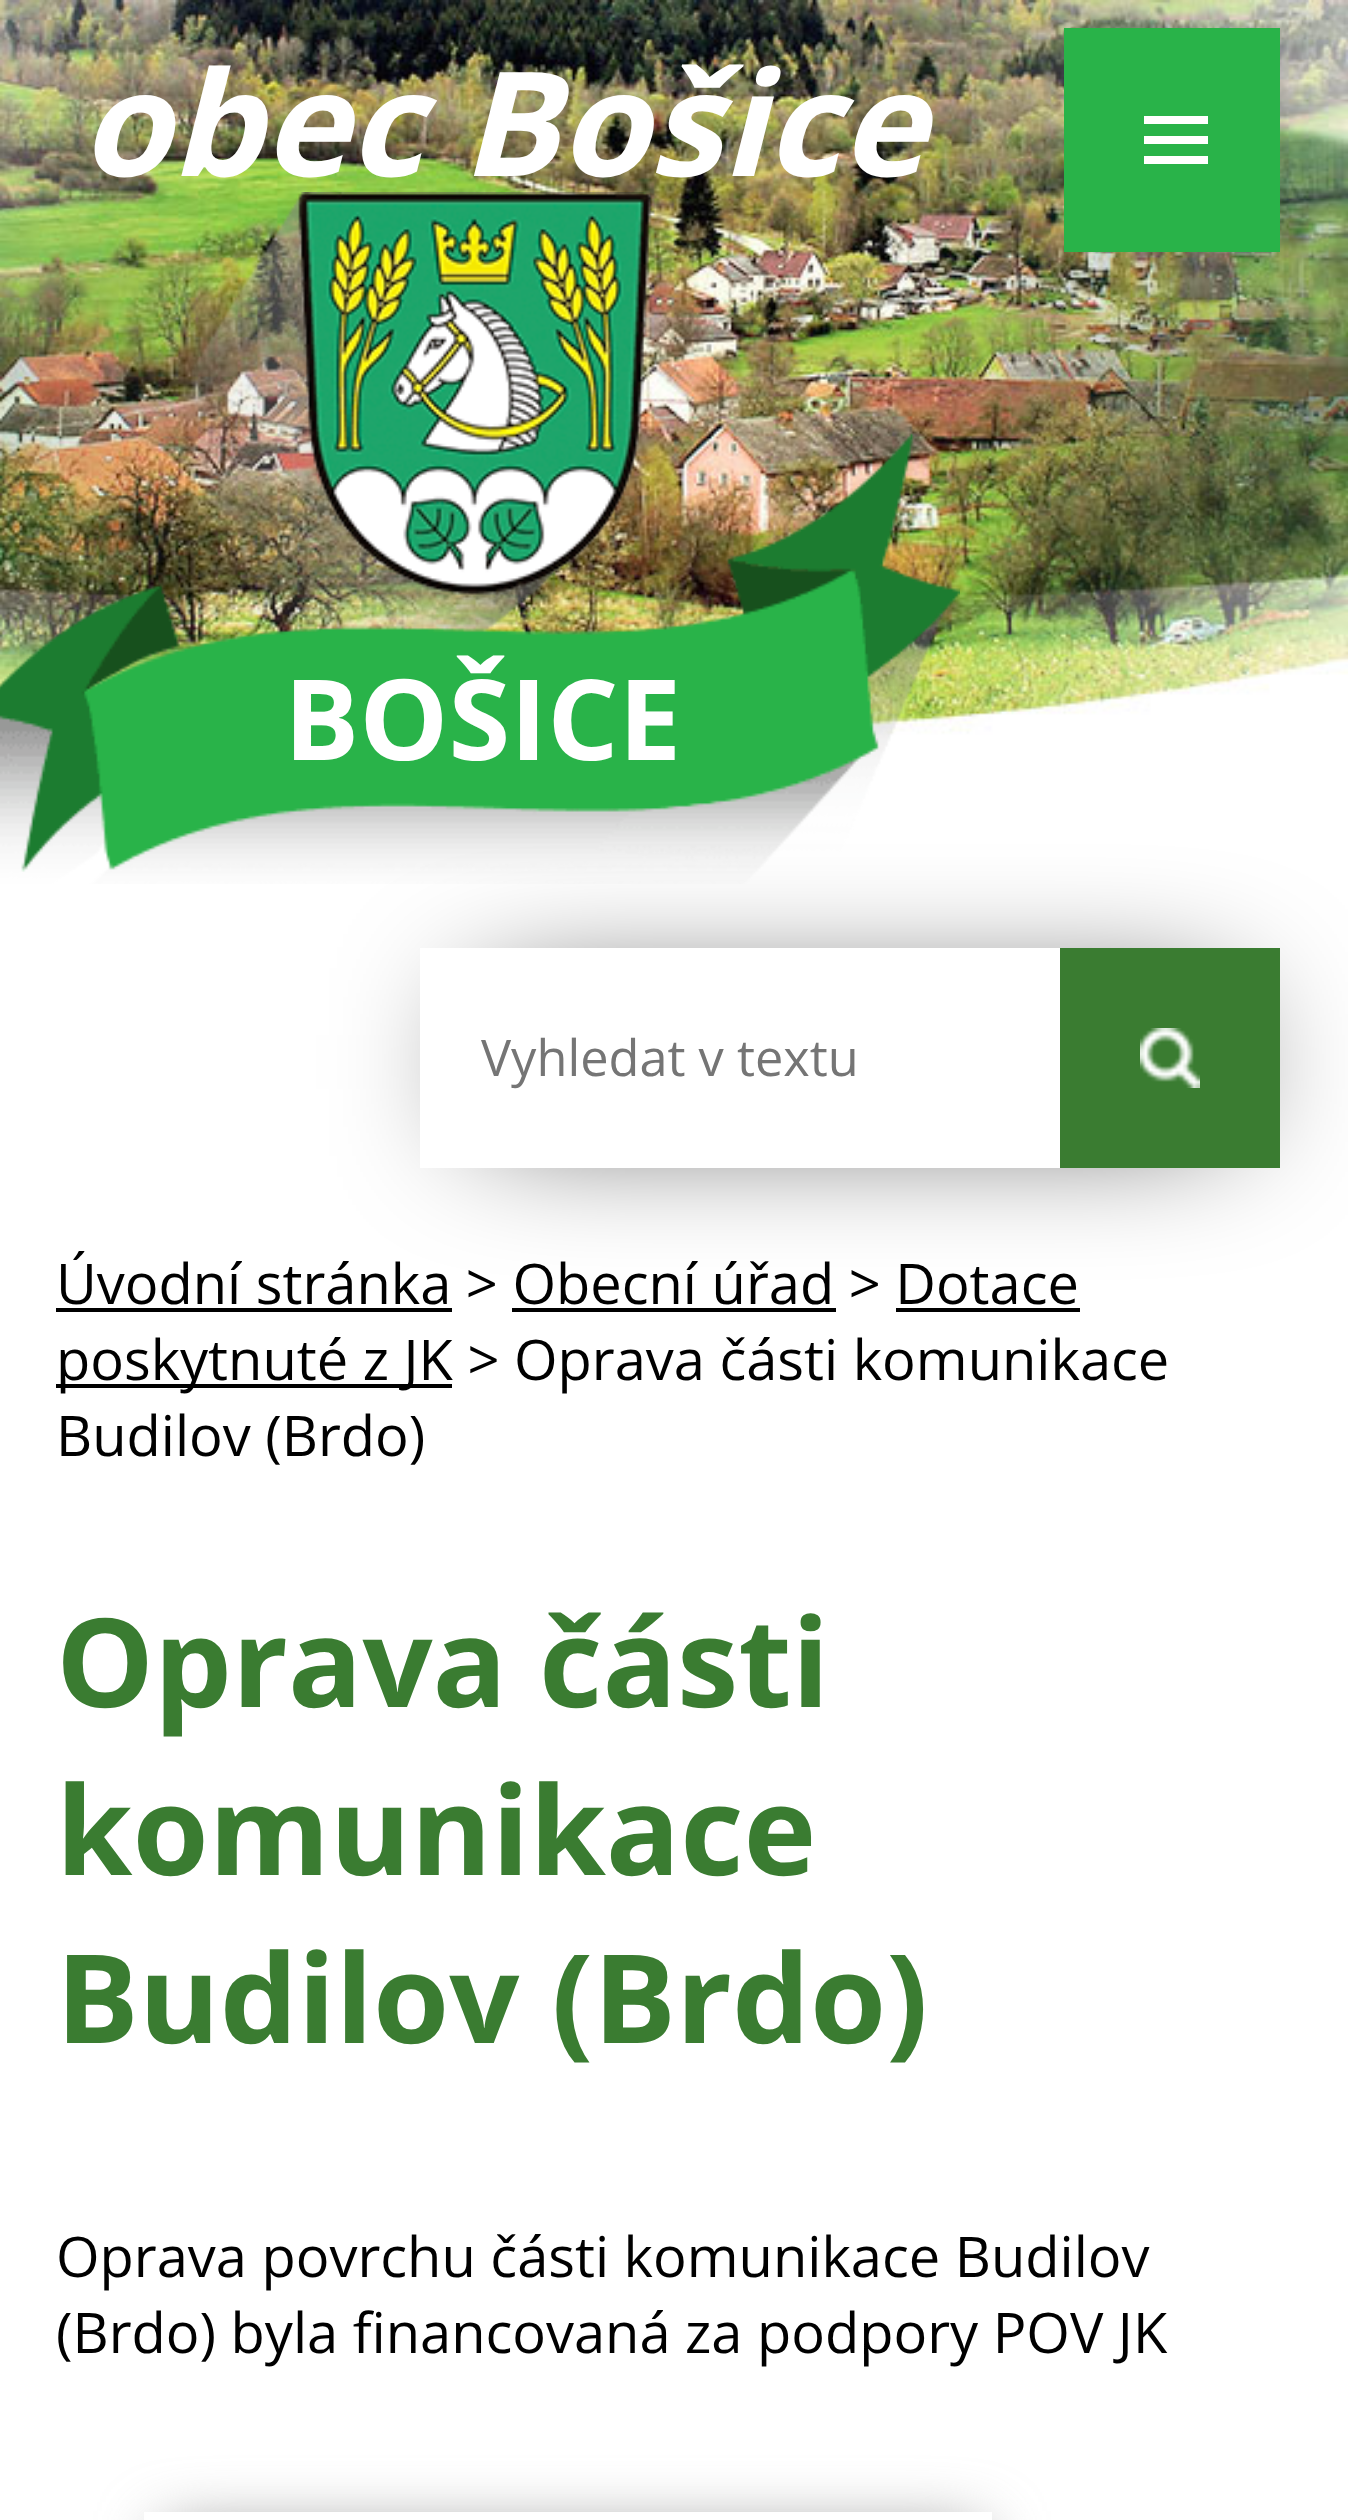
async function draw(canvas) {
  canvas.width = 1348
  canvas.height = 2520
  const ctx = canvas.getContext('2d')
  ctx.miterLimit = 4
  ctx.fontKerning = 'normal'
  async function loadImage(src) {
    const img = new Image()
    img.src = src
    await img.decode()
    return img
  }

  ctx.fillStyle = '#fff'
  ctx.fillRect(0, 0, 1348, 2520)
  ctx.drawImage(await loadImage('image0.png'), 0, 0, 1348, 735)
  ctx.font = 'italic bold 145.5px Open Sans'
  ctx.fillText('obec Bošice', 80, 176)
  ctx.save()
  ctx.beginPath()
  ctx.moveTo(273, 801)
  ctx.lineTo(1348, 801)
  ctx.lineTo(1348, 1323)
  ctx.lineTo(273, 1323)
  ctx.closePath()
  ctx.moveTo(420, 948)
  ctx.lineTo(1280, 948)
  ctx.lineTo(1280, 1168)
  ctx.lineTo(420, 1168)
  ctx.closePath()
  ctx.clip('evenodd')
  ctx.fillStyle = '#000'
  ctx.filter = 'blur(70px)'
  ctx.beginPath()
  ctx.rect(484, 1012, 740, 100)
  ctx.fill()
  ctx.filter = 'none'
  ctx.restore()
  ctx.drawImage(await loadImage('image1.png'), 0, 192, 960, 692)
  ctx.font = 'bold 112px Open Sans'
  ctx.fillText('BOŠICE', 284, 760)
  ctx.font = '50.5px Open Sans'
  ctx.fillStyle = '#757575'
  ctx.fillText('Vyhledat v textu', 481, 1076)
  ctx.fillStyle = '#3a7c31'
  ctx.fillRect(1060, 948, 220, 220)
  ctx.drawImage(await loadImage('image2.png'), 1140, 1028, 60, 60)
  ctx.fillStyle = '#29b349'
  ctx.fillRect(1064, 28, 216, 224)
  ctx.fillStyle = '#fff'
  ctx.beginPath()
  ctx.moveTo(1144, 164)
  ctx.lineTo(1144, 156)
  ctx.lineTo(1208, 156)
  ctx.lineTo(1208, 164)
  ctx.closePath()
  ctx.moveTo(1144, 116)
  ctx.lineTo(1208, 116)
  ctx.lineTo(1208, 124)
  ctx.lineTo(1144, 124)
  ctx.closePath()
  ctx.moveTo(1144, 144)
  ctx.lineTo(1144, 136)
  ctx.lineTo(1208, 136)
  ctx.lineTo(1208, 144)
  ctx.closePath()
  ctx.fill()
  ctx.font = '56px Open Sans'
  ctx.fillStyle = '#000'
  ctx.fillText('Úvodní stránka > Obecní úřad > Dotace', 56, 1304)
  ctx.fillRect(56, 1308, 396, 4)
  ctx.fillRect(512, 1308, 324, 4)
  ctx.fillRect(56, 1384, 396, 4)
  ctx.fillText('poskytnuté z JK > Oprava části komunikace', 56, 1380)
  ctx.fillRect(896, 1308, 184, 4)
  ctx.fillText('Budilov (Brdo)', 56, 1456)
  ctx.font = 'bold 123.25px Open Sans'
  ctx.fillStyle = '#3a7c31'
  ctx.fillText('Oprava části', 56, 1707)
  ctx.fillText('komunikace', 56, 1875)
  ctx.fillText('Budilov (Brdo)', 56, 2043)
  ctx.font = '56px Open Sans'
  ctx.fillStyle = '#000'
  ctx.fillText('Oprava povrchu části komunikace Budilov', 56, 2277)
  ctx.fillText('(Brdo) byla financovaná za podpory POV JK', 56, 2353)
  ctx.save()
  ctx.beginPath()
  ctx.moveTo(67, 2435)
  ctx.lineTo(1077, 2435)
  ctx.lineTo(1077, 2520)
  ctx.lineTo(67, 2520)
  ctx.closePath()
  ctx.moveTo(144, 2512)
  ctx.lineTo(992, 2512)
  ctx.lineTo(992, 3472)
  ctx.lineTo(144, 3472)
  ctx.closePath()
  ctx.clip('evenodd')
  ctx.fillStyle = '#888'
  ctx.filter = 'blur(32px)'
  ctx.beginPath()
  ctx.rect(164, 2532, 816, 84)
  ctx.fill()
  ctx.filter = 'none'
  ctx.restore()
}

draw(document.querySelector('canvas'))
